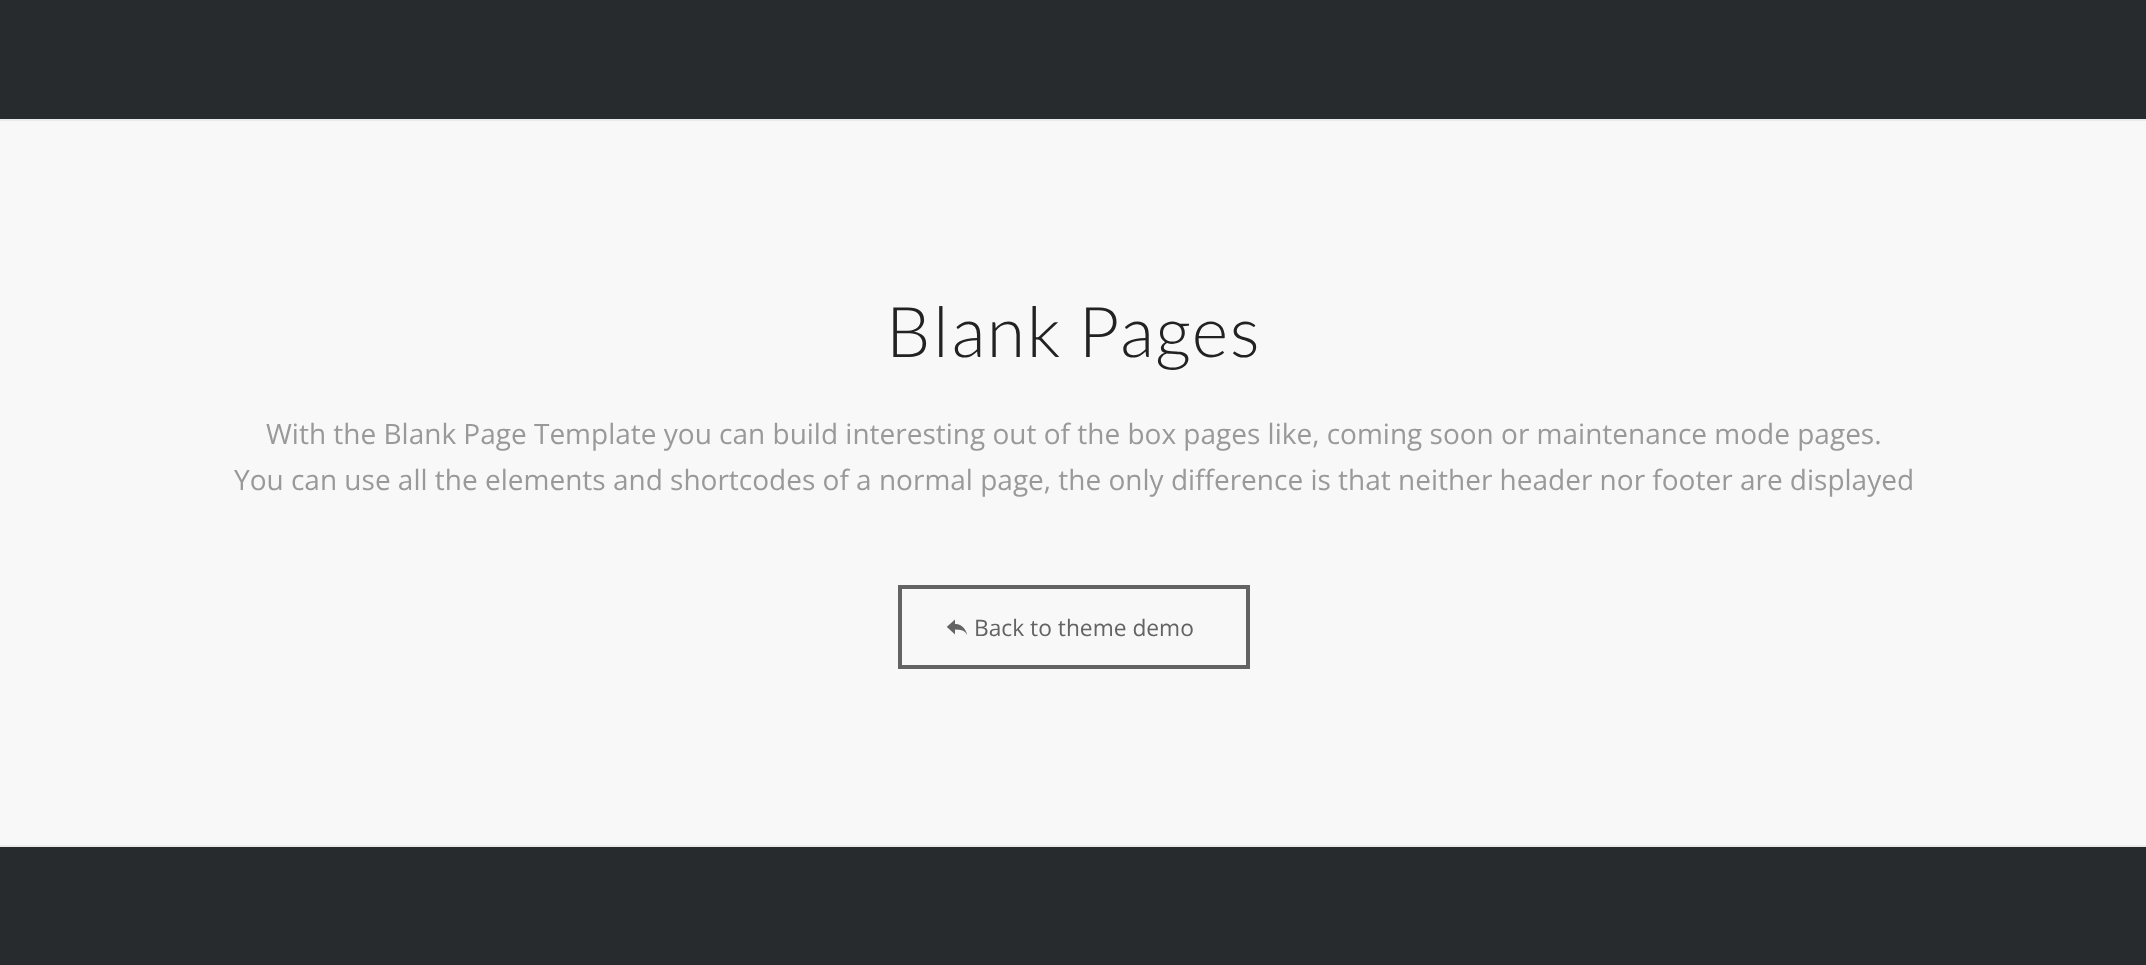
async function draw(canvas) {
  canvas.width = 2146
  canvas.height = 965
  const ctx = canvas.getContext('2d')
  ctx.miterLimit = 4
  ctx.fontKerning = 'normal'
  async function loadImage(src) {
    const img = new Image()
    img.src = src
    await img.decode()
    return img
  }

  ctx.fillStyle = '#282b2e'
  ctx.fillRect(0, 0, 2146, 965)
  ctx.fillStyle = '#f8f8f8'
  ctx.fillRect(0, 121, 2146, 724)
  ctx.fillStyle = '#ebebeb'
  ctx.fillRect(0, 119, 2146, 2)
  ctx.fillRect(0, 845, 2146, 2)
  ctx.letterSpacing = '1.75px'
  ctx.font = '300 70px Lato'
  ctx.fillStyle = '#222'
  ctx.fillText('Blank Pages', 886, 357)
  ctx.letterSpacing = '0px'
  ctx.font = '28px Open Sans'
  ctx.fillStyle = '#999'
  ctx.fillText('With the Blank Page Template you can build interesting out of the box pages like, coming soon or maintenance mode pages.', 266, 444)
  ctx.fillText('You can use all the elements and shortcodes of a normal page, the only difference is that neither header nor footer are displayed', 234, 490)
  ctx.strokeStyle = '#636363'
  ctx.lineWidth = 4
  ctx.strokeRect(900, 587, 348, 80)
  ctx.drawImage(await loadImage('image0.png'), 946, 619, 22, 16)
  ctx.font = '22.75px Open Sans'
  ctx.fillStyle = '#636363'
  ctx.fillText('Back to theme demo', 974, 636)
}

draw(document.querySelector('canvas'))
